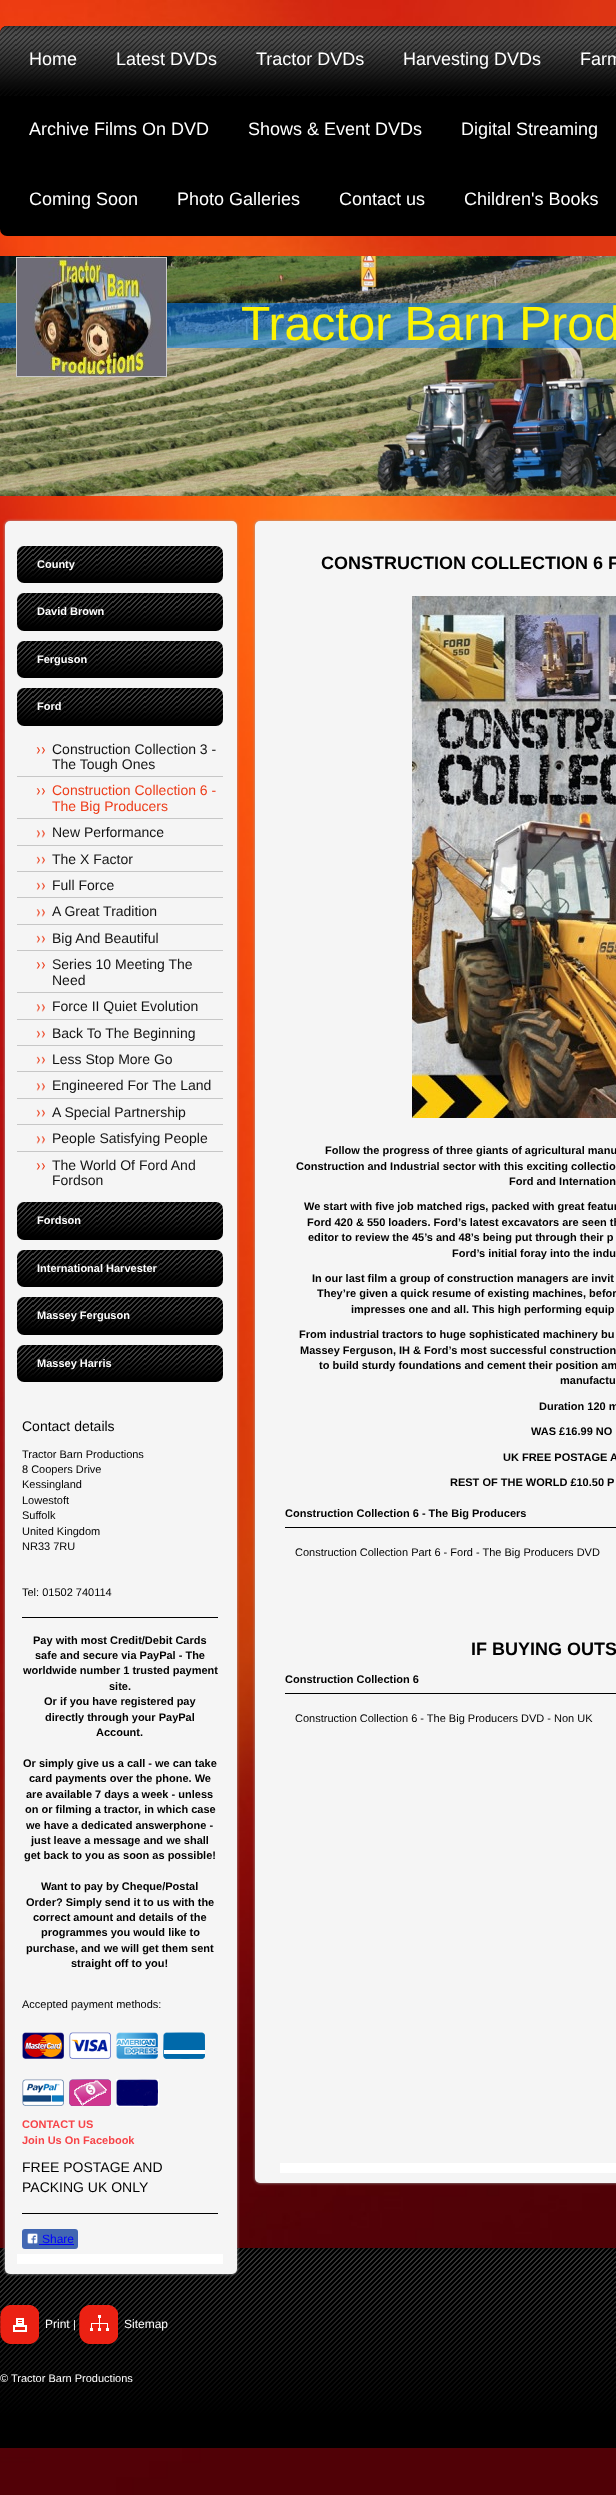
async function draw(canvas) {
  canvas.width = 616
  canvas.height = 2495
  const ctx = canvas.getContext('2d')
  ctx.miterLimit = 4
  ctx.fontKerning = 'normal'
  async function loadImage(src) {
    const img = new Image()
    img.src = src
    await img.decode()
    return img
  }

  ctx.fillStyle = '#fff'
  ctx.fillRect(0, 0, 616, 2495)
  ctx.drawImage(await loadImage('image0.png'), 0, 0, 616, 2495)
  ctx.fillStyle = '#000'
  ctx.beginPath()
  ctx.roundRect(0, 26, 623, 210, 7)
  ctx.fill()
  ctx.drawImage(await loadImage('image1.png'), 0, 26, 616, 70)
  ctx.font = '18px Liberation Sans'
  ctx.fillStyle = '#fff'
  ctx.fillText('Home', 29, 65)
  ctx.fillText('Latest DVDs', 116, 65)
  ctx.fillText('Tractor DVDs', 256, 65)
  ctx.fillText('Harvesting DVDs', 403, 65)
  ctx.fillText('Farm', 580, 65)
  ctx.fillText('Archive Films On DVD', 29, 135)
  ctx.fillText('Shows & Event DVDs', 248, 135)
  ctx.fillText('Digital Streaming', 461, 135)
  ctx.fillText('Coming Soon', 29, 205)
  ctx.fillText('Photo Galleries', 177, 205)
  ctx.fillText('Contact us', 339, 205)
  ctx.fillText('Children\'s Books', 464, 205)
  ctx.drawImage(await loadImage('image2.png'), 0, 256, 616, 240)
  ctx.fillStyle = '#0080ff80'
  ctx.fillRect(0, 303, 616, 45)
  ctx.strokeStyle = '#ccc'
  ctx.strokeRect(16.5, 257.5, 150, 119)
  ctx.drawImage(await loadImage('image3.png'), 17, 258, 149, 118)
  ctx.font = '48px Liberation Sans'
  ctx.fillStyle = '#fcf302'
  ctx.fillText('Tractor Barn Prod', 241, 340)
  ctx.drawImage(await loadImage('image18.png'), 0, 2248, 616, 200)
  ctx.fillStyle = '#aaa'
  ctx.filter = 'blur(1.5px)'
  ctx.beginPath()
  ctx.roundRect(5, 521, 232, 1753, 5)
  ctx.fill()
  ctx.filter = 'none'
  ctx.fillStyle = '#f5f5f5'
  ctx.beginPath()
  ctx.roundRect(5, 521, 232, 1753, 5)
  ctx.fill()
  ctx.fillStyle = '#fff'
  ctx.fillRect(17, 2254, 206, 10)
  ctx.drawImage(await loadImage('image4.png'), 17, 546, 206, 37)
  ctx.font = 'bold 11px Liberation Sans'
  ctx.fillText('County', 37, 568)
  ctx.drawImage(await loadImage('image5.png'), 17, 593, 206, 38)
  ctx.fillText('David Brown', 37, 615)
  ctx.drawImage(await loadImage('image4.png'), 17, 641, 206, 37)
  ctx.fillText('Ferguson', 37, 663)
  ctx.drawImage(await loadImage('image5.png'), 17, 688, 206, 38)
  ctx.fillText('Ford', 37, 710)
  ctx.fillStyle = '#c7c7c7'
  ctx.fillRect(17, 776, 206, 1)
  ctx.drawImage(await loadImage('image6.png'), 36, 747, 9, 7)
  ctx.font = '14px Liberation Sans'
  ctx.fillStyle = '#121212'
  ctx.fillText('Construction Collection 3 -', 52, 754)
  ctx.fillText('The Tough Ones', 52, 769)
  ctx.fillStyle = '#c7c7c7'
  ctx.fillRect(17, 818, 206, 1)
  ctx.drawImage(await loadImage('image6.png'), 36, 788, 9, 7)
  ctx.fillStyle = '#ed3d1a'
  ctx.fillText('Construction Collection 6 -', 52, 795)
  ctx.fillText('The Big Producers', 52, 811)
  ctx.fillStyle = '#c7c7c7'
  ctx.fillRect(17, 845, 206, 1)
  ctx.drawImage(await loadImage('image7.png'), 36, 830, 9, 8)
  ctx.fillStyle = '#121212'
  ctx.fillText('New Performance', 52, 837)
  ctx.fillStyle = '#c7c7c7'
  ctx.fillRect(17, 871, 206, 1)
  ctx.drawImage(await loadImage('image8.png'), 36, 856, 9, 8)
  ctx.fillStyle = '#121212'
  ctx.fillText('The X Factor', 52, 864)
  ctx.fillStyle = '#c7c7c7'
  ctx.fillRect(17, 897, 206, 1)
  ctx.drawImage(await loadImage('image8.png'), 36, 882, 9, 8)
  ctx.fillStyle = '#121212'
  ctx.fillText('Full Force', 52, 890)
  ctx.fillStyle = '#c7c7c7'
  ctx.fillRect(17, 924, 206, 1)
  ctx.drawImage(await loadImage('image7.png'), 36, 909, 9, 8)
  ctx.fillStyle = '#121212'
  ctx.fillText('A Great Tradition', 52, 916)
  ctx.fillStyle = '#c7c7c7'
  ctx.fillRect(17, 950, 206, 1)
  ctx.drawImage(await loadImage('image8.png'), 36, 935, 9, 8)
  ctx.fillStyle = '#121212'
  ctx.fillText('Big And Beautiful', 52, 943)
  ctx.fillStyle = '#c7c7c7'
  ctx.fillRect(17, 992, 206, 1)
  ctx.drawImage(await loadImage('image6.png'), 36, 962, 9, 7)
  ctx.fillStyle = '#121212'
  ctx.fillText('Series 10 Meeting The', 52, 969)
  ctx.fillText('Need', 52, 985)
  ctx.fillStyle = '#c7c7c7'
  ctx.fillRect(17, 1019, 206, 1)
  ctx.drawImage(await loadImage('image7.png'), 36, 1004, 9, 8)
  ctx.fillStyle = '#121212'
  ctx.fillText('Force II Quiet Evolution', 52, 1011)
  ctx.fillStyle = '#c7c7c7'
  ctx.fillRect(17, 1045, 206, 1)
  ctx.drawImage(await loadImage('image8.png'), 36, 1030, 9, 8)
  ctx.fillStyle = '#121212'
  ctx.fillText('Back To The Beginning', 52, 1038)
  ctx.fillStyle = '#c7c7c7'
  ctx.fillRect(17, 1071, 206, 1)
  ctx.drawImage(await loadImage('image8.png'), 36, 1056, 9, 8)
  ctx.fillStyle = '#121212'
  ctx.fillText('Less Stop More Go', 52, 1064)
  ctx.fillStyle = '#c7c7c7'
  ctx.fillRect(17, 1098, 206, 1)
  ctx.drawImage(await loadImage('image7.png'), 36, 1083, 9, 8)
  ctx.fillStyle = '#121212'
  ctx.fillText('Engineered For The Land', 52, 1090)
  ctx.fillStyle = '#c7c7c7'
  ctx.fillRect(17, 1124, 206, 1)
  ctx.drawImage(await loadImage('image8.png'), 36, 1109, 9, 8)
  ctx.fillStyle = '#121212'
  ctx.fillText('A Special Partnership', 52, 1117)
  ctx.fillStyle = '#c7c7c7'
  ctx.fillRect(17, 1151, 206, 1)
  ctx.drawImage(await loadImage('image7.png'), 36, 1136, 9, 8)
  ctx.fillStyle = '#121212'
  ctx.fillText('People Satisfying People', 52, 1143)
  ctx.drawImage(await loadImage('image6.png'), 36, 1163, 9, 7)
  ctx.fillText('The World Of Ford And', 52, 1170)
  ctx.fillText('Fordson', 52, 1185)
  ctx.drawImage(await loadImage('image5.png'), 17, 1202, 206, 38)
  ctx.font = 'bold 11px Liberation Sans'
  ctx.fillStyle = '#fff'
  ctx.fillText('Fordson', 37, 1224)
  ctx.drawImage(await loadImage('image4.png'), 17, 1250, 206, 37)
  ctx.fillText('International Harvester', 37, 1272)
  ctx.drawImage(await loadImage('image5.png'), 17, 1297, 206, 38)
  ctx.fillText('Massey Ferguson', 37, 1319)
  ctx.drawImage(await loadImage('image4.png'), 17, 1345, 206, 37)
  ctx.fillText('Massey Harris', 37, 1367)
  ctx.font = '14px Liberation Sans'
  ctx.fillStyle = '#000'
  ctx.fillText('Contact details', 22, 1431)
  ctx.font = '11px Liberation Sans'
  ctx.fillText('Tractor Barn Productions', 22, 1458)
  ctx.fillText('8 Coopers Drive', 22, 1473)
  ctx.fillText('Kessingland', 22, 1488)
  ctx.fillText('Lowestoft', 22, 1504)
  ctx.fillText('Suffolk', 22, 1519)
  ctx.fillText('United Kingdom', 22, 1535)
  ctx.fillText('NR33 7RU', 22, 1550)
  ctx.fillText('Tel: 01502 740114', 22, 1596)
  ctx.fillRect(22, 1617, 196, 1)
  ctx.font = 'bold 11px Liberation Sans'
  ctx.fillText('Pay with most Credit/Debit Cards', 33, 1644)
  ctx.fillText('safe and secure via PayPal - The', 35, 1659)
  ctx.fillText('worldwide number 1 trusted payment', 23, 1674)
  ctx.fillText('site.', 109, 1690)
  ctx.fillText('Or if you have registered pay', 44, 1705)
  ctx.fillText('directly through your PayPal', 45, 1721)
  ctx.fillText('Account.', 96, 1736)
  ctx.fillText('Or simply give us a call - we can take', 23, 1767)
  ctx.fillText('card payments over the phone. We', 29, 1782)
  ctx.fillText('are available 7 days a week - unless', 26, 1798)
  ctx.fillText('on or filming a tractor, in which case', 25, 1813)
  ctx.fillText('we have a dedicated answerphone -', 26, 1829)
  ctx.fillText('just leave a message and we shall', 31, 1844)
  ctx.fillText('get back to you as soon as possible!', 24, 1859)
  ctx.fillText('Want to pay by Cheque/Postal', 41, 1890)
  ctx.fillText('Order? Simply send it to us with the', 26, 1906)
  ctx.fillText('correct amount and details of the', 33, 1921)
  ctx.fillText('programmes you would like to', 41, 1936)
  ctx.fillText('purchase, and we will get them sent', 26, 1952)
  ctx.fillText('straight off to you!', 71, 1967)
  ctx.font = '11px Liberation Sans'
  ctx.fillText('Accepted payment methods:', 22, 2008)
  ctx.drawImage(await loadImage('image9.png'), 22, 2032, 42, 27)
  ctx.drawImage(await loadImage('image10.png'), 69, 2032, 42, 27)
  ctx.drawImage(await loadImage('image11.png'), 116, 2032, 42, 27)
  ctx.drawImage(await loadImage('image12.png'), 163, 2032, 42, 27)
  ctx.drawImage(await loadImage('image13.png'), 22, 2079, 42, 27)
  ctx.drawImage(await loadImage('image14.png'), 69, 2079, 42, 27)
  ctx.drawImage(await loadImage('image15.png'), 116, 2079, 43, 28)
  ctx.font = 'bold 11px Liberation Sans'
  ctx.fillStyle = '#f74448'
  ctx.fillText('CONTACT US', 22, 2128)
  ctx.fillText('Join Us On Facebook', 22, 2144)
  ctx.font = '14px Liberation Sans'
  ctx.fillStyle = '#000'
  ctx.fillText('FREE POSTAGE AND', 22, 2172)
  ctx.fillText('PACKING UK ONLY', 22, 2192)
  ctx.fillRect(22, 2213, 196, 1)
  ctx.fillStyle = '#4267b2'
  ctx.beginPath()
  ctx.roundRect(22, 2229, 56, 20, 3)
  ctx.fill()
  ctx.drawImage(await loadImage('image16.png'), 27, 2233, 11, 11)
  ctx.font = '12px Liberation Sans'
  ctx.fillStyle = '#00f'
  ctx.fillText('Share', 42, 2243)
  ctx.fillRect(39, 2244, 35, 1)
  ctx.fillStyle = '#aaa'
  ctx.filter = 'blur(1.5px)'
  ctx.beginPath()
  ctx.roundRect(255, 521, 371, 1662, 5)
  ctx.fill()
  ctx.filter = 'none'
  ctx.fillStyle = '#f5f5f5'
  ctx.beginPath()
  ctx.roundRect(255, 521, 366, 1662, 5)
  ctx.fill()
  ctx.fillStyle = '#fff'
  ctx.fillRect(280, 2163, 336, 10)
  ctx.font = 'bold 18px Liberation Sans'
  ctx.fillStyle = '#000'
  ctx.fillText('CONSTRUCTION COLLECTION 6 F', 321, 569)
  ctx.drawImage(await loadImage('image17.png'), 412, 596, 204, 522)
  ctx.font = 'bold 11px Liberation Sans'
  ctx.fillText('Follow the progress of three giants of agricultural manu', 325, 1154)
  ctx.fillText('Construction and Industrial sector with this exciting collectio', 296, 1170)
  ctx.fillText('Ford and Internation', 509, 1185)
  ctx.fillText('We start with five job matched rigs, packed with great featur', 304, 1210)
  ctx.fillText('Ford 420 & 550 loaders. Ford’s latest excavators are seen th', 307, 1226)
  ctx.fillText('editor to review the 45’s and 48’s being put through their p', 308, 1241)
  ctx.fillText('Ford’s initial foray into the indu', 452, 1257)
  ctx.fillText('In our last film a group of construction managers are invit', 312, 1282)
  ctx.fillText('They’re given a quick resume of existing machines, befor', 317, 1297)
  ctx.fillText('impresses one and all. This high performing equip', 351, 1313)
  ctx.fillText('From industrial tractors to huge sophisticated machinery bu', 299, 1338)
  ctx.fillText('Massey Ferguson, IH & Ford’s most successful construction', 300, 1354)
  ctx.fillText('to build sturdy foundations and cement their position am', 319, 1369)
  ctx.fillText('manufactu', 560, 1384)
  ctx.fillText('Duration 120 m', 539, 1410)
  ctx.fillText('WAS £16.99 NO', 531, 1435)
  ctx.fillText('UK FREE POSTAGE A', 503, 1461)
  ctx.fillText('REST OF THE WORLD £10.50 P', 450, 1486)
  ctx.fillText('Construction Collection 6 - The Big Producers', 285, 1517)
  ctx.fillRect(285, 1527, 331, 1)
  ctx.font = '11px Liberation Sans'
  ctx.fillText('Construction Collection Part 6 - Ford - The Big Producers DVD', 295, 1556)
  ctx.font = 'bold 18px Liberation Sans'
  ctx.fillText('IF BUYING OUTS', 471, 1655)
  ctx.font = 'bold 11px Liberation Sans'
  ctx.fillText('Construction Collection 6', 285, 1683)
  ctx.fillRect(285, 1693, 331, 1)
  ctx.font = '11px Liberation Sans'
  ctx.fillText('Construction Collection 6 - The Big Producers DVD - Non UK', 295, 1722)
  ctx.drawImage(await loadImage('image19.png'), 0, 2305, 39, 39)
  ctx.font = '12px Liberation Sans'
  ctx.fillStyle = '#fff'
  ctx.fillText('Print', 45, 2328)
  ctx.font = '11px Liberation Sans'
  ctx.fillText('|', 73, 2328)
  ctx.drawImage(await loadImage('image20.png'), 79, 2305, 39, 39)
  ctx.font = '12px Liberation Sans'
  ctx.fillText('Sitemap', 124, 2328)
  ctx.font = '11px Liberation Sans'
  ctx.fillText('© Tractor Barn Productions', 0, 2382)
}

draw(document.querySelector('canvas'))
